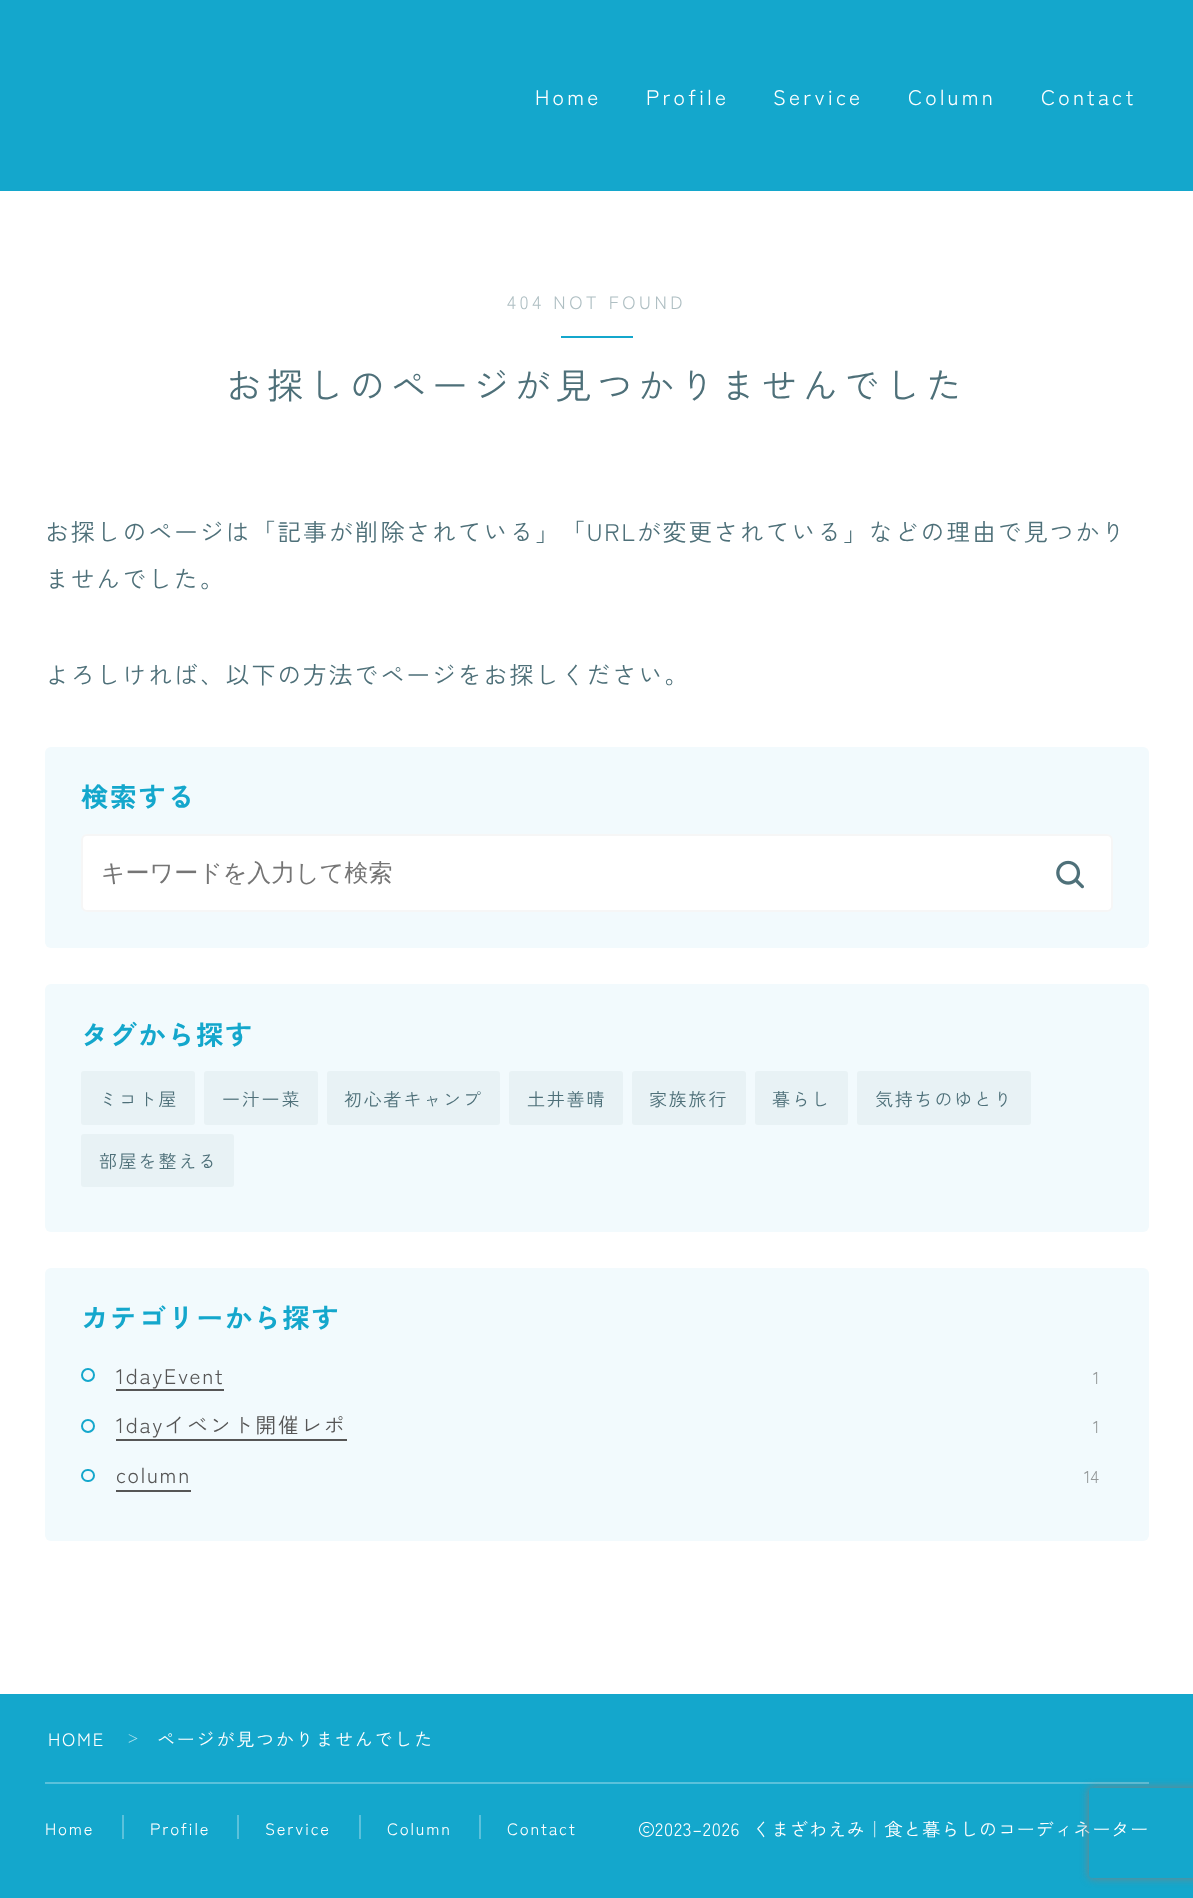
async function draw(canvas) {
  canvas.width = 1193
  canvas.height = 1898
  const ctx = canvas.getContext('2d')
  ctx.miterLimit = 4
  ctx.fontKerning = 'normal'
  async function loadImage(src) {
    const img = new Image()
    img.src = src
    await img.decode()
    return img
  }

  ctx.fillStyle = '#14a7cc'
  ctx.fillRect(0, 0, 1193, 1898)
  ctx.letterSpacing = '3.25px'
  ctx.font = '21px Zen Kaku Gothic New'
  ctx.fillStyle = '#fff'
  ctx.fillText('Home', 535, 105)
  ctx.fillText('Profile', 646, 105)
  ctx.fillText('Service', 773, 105)
  ctx.fillText('Column', 908, 105)
  ctx.fillText('Contact', 1041, 105)
  ctx.fillRect(0, 191, 1193, 1503)
  ctx.letterSpacing = '3.6px'
  ctx.font = '18px Zen Kaku Gothic New'
  ctx.fillStyle = '#afbfc3'
  ctx.fillText('404 NOT FOUND', 507, 309)
  ctx.fillStyle = '#14a7cc'
  ctx.fillRect(561, 336, 72, 2)
  ctx.letterSpacing = '5.4px'
  ctx.font = '35.8px Zen Kaku Gothic New'
  ctx.fillStyle = '#4e7079'
  ctx.fillText('お探しのページが見つかりませんでした', 226, 399)
  ctx.letterSpacing = '1.8px'
  ctx.font = '24px Zen Kaku Gothic New'
  ctx.fillText('お探しのページは「記事が削除されている」「URLが変更されている」などの理由で見つかり', 45, 541)
  ctx.fillText('ませんでした。', 45, 588)
  ctx.fillText('よろしければ、以下の方法でページをお探しください。', 45, 684)
  ctx.fillStyle = '#f2fafd'
  ctx.beginPath()
  ctx.roundRect(45, 747, 1104, 201, 6)
  ctx.fill()
  ctx.font = 'bold 27px Zen Kaku Gothic New'
  ctx.fillStyle = '#14a7cc'
  ctx.fillText('検索する', 81, 807)
  ctx.fillStyle = '#fff'
  ctx.beginPath()
  ctx.roundRect(82, 835, 1030, 76, 5)
  ctx.fill()
  ctx.strokeStyle = '#f6f6f6'
  ctx.lineWidth = 2
  ctx.stroke()
  ctx.letterSpacing = '0px'
  ctx.font = '500 24px WenQuanYi Zen Hei'
  ctx.fillStyle = '#757575'
  ctx.fillText('キーワードを入力して検索', 101, 881)
  ctx.drawImage(await loadImage('image0.png'), 1056, 860, 28, 29)
  ctx.fillStyle = '#f2fafd'
  ctx.beginPath()
  ctx.roundRect(45, 984, 1104, 248, 6)
  ctx.fill()
  ctx.letterSpacing = '1.8px'
  ctx.font = 'bold 27px Zen Kaku Gothic New'
  ctx.fillStyle = '#14a7cc'
  ctx.fillText('タグから探す', 81, 1045)
  ctx.fillStyle = '#e8f2f5'
  ctx.beginPath()
  ctx.roundRect(81, 1071, 114, 54, 3)
  ctx.fill()
  ctx.font = '18px Zen Kaku Gothic New'
  ctx.fillStyle = '#4e7079'
  ctx.fillText('ミコト屋', 99, 1106)
  ctx.fillStyle = '#e8f2f5'
  ctx.beginPath()
  ctx.roundRect(204, 1071, 114, 54, 3)
  ctx.fill()
  ctx.fillStyle = '#4e7079'
  ctx.fillText('一汁一菜', 222, 1106)
  ctx.fillStyle = '#e8f2f5'
  ctx.beginPath()
  ctx.roundRect(327, 1071, 173, 54, 3)
  ctx.fill()
  ctx.fillStyle = '#4e7079'
  ctx.fillText('初心者キャンプ', 344, 1106)
  ctx.fillStyle = '#e8f2f5'
  ctx.beginPath()
  ctx.roundRect(509, 1071, 114, 54, 3)
  ctx.fill()
  ctx.fillStyle = '#4e7079'
  ctx.fillText('土井善晴', 527, 1106)
  ctx.fillStyle = '#e8f2f5'
  ctx.beginPath()
  ctx.roundRect(632, 1071, 114, 54, 3)
  ctx.fill()
  ctx.fillStyle = '#4e7079'
  ctx.fillText('家族旅行', 649, 1106)
  ctx.fillStyle = '#e8f2f5'
  ctx.beginPath()
  ctx.roundRect(755, 1071, 93, 54, 3)
  ctx.fill()
  ctx.fillStyle = '#4e7079'
  ctx.fillText('暮らし', 772, 1106)
  ctx.fillStyle = '#e8f2f5'
  ctx.beginPath()
  ctx.roundRect(857, 1071, 174, 54, 3)
  ctx.fill()
  ctx.fillStyle = '#4e7079'
  ctx.fillText('気持ちのゆとり', 875, 1106)
  ctx.fillStyle = '#e8f2f5'
  ctx.beginPath()
  ctx.roundRect(81, 1134, 153, 53, 3)
  ctx.fill()
  ctx.fillStyle = '#4e7079'
  ctx.fillText('部屋を整える', 99, 1168)
  ctx.fillStyle = '#f2fafd'
  ctx.beginPath()
  ctx.roundRect(45, 1268, 1104, 273, 6)
  ctx.fill()
  ctx.font = 'bold 27px Zen Kaku Gothic New'
  ctx.fillStyle = '#14a7cc'
  ctx.fillText('カテゴリーから探す', 81, 1328)
  ctx.beginPath()
  ctx.arc(88, 1375, 6, 0, 2 * Math.PI)
  ctx.strokeStyle = '#14a7cc'
  ctx.stroke()
  ctx.font = '21px Zen Kaku Gothic New'
  ctx.fillStyle = '#565656'
  ctx.fillText('1dayEvent', 116, 1384)
  ctx.fillRect(116, 1389, 108, 2)
  ctx.letterSpacing = '0px'
  ctx.font = '17px Zen Kaku Gothic New'
  ctx.fillStyle = '#949899'
  ctx.fillText('1', 1093, 1384)
  ctx.beginPath()
  ctx.arc(88, 1426, 6, 0, 2 * Math.PI)
  ctx.stroke()
  ctx.letterSpacing = '1.8px'
  ctx.font = '21px Zen Kaku Gothic New'
  ctx.fillStyle = '#565656'
  ctx.fillText('1dayイベント開催レポ', 116, 1433)
  ctx.fillRect(116, 1439, 231, 2)
  ctx.letterSpacing = '0px'
  ctx.font = '17px Zen Kaku Gothic New'
  ctx.fillStyle = '#949899'
  ctx.fillText('1', 1093, 1433)
  ctx.beginPath()
  ctx.roundRect(82, 1470, 12, 11, 5.5)
  ctx.stroke()
  ctx.letterSpacing = '1.8px'
  ctx.font = '21px Zen Kaku Gothic New'
  ctx.fillStyle = '#565656'
  ctx.fillText('column', 116, 1483)
  ctx.fillRect(116, 1490, 75, 2)
  ctx.letterSpacing = '0px'
  ctx.font = '17px Zen Kaku Gothic New'
  ctx.fillStyle = '#949899'
  ctx.fillText('14', 1084, 1483)
  ctx.letterSpacing = '1.8px'
  ctx.font = '18px Zen Kaku Gothic New'
  ctx.fillStyle = '#fff'
  ctx.fillText('HOME', 48, 1746)
  ctx.letterSpacing = '1px'
  ctx.font = '12px Zen Kaku Gothic New'
  ctx.fillStyle = '#b9e5f0'
  ctx.fillText('＞', 127, 1743)
  ctx.letterSpacing = '1.8px'
  ctx.font = '18px Zen Kaku Gothic New'
  ctx.fillStyle = '#fff'
  ctx.fillText('ページが見つかりませんでした', 157, 1746)
  ctx.fillStyle = '#5bc1db'
  ctx.fillRect(45, 1782, 1104, 2)
  ctx.font = '16.5px Zen Kaku Gothic New'
  ctx.fillStyle = '#fff'
  ctx.fillText('Home', 45, 1835)
  ctx.fillStyle = '#5bc1db'
  ctx.fillRect(122, 1815, 2, 24)
  ctx.fillStyle = '#fff'
  ctx.fillText('Profile', 150, 1835)
  ctx.fillStyle = '#5bc1db'
  ctx.fillRect(237, 1815, 2, 24)
  ctx.fillStyle = '#fff'
  ctx.fillText('Service', 265, 1835)
  ctx.fillStyle = '#5bc1db'
  ctx.fillRect(359, 1815, 2, 24)
  ctx.fillStyle = '#fff'
  ctx.fillText('Column', 387, 1835)
  ctx.fillStyle = '#5bc1db'
  ctx.fillRect(479, 1815, 2, 24)
  ctx.fillStyle = '#fff'
  ctx.fillText('Contact', 507, 1835)
  ctx.drawImage(await loadImage('image1.png'), 639, 1822, 15, 15)
  ctx.letterSpacing = '0.9px'
  ctx.font = '18px Zen Kaku Gothic New'
  ctx.fillText('2023–2026  くまざわえみ｜食と暮らしのコーディネーター', 655, 1836)
  ctx.save()
  ctx.beginPath()
  ctx.moveTo(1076, 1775)
  ctx.lineTo(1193, 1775)
  ctx.lineTo(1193, 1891)
  ctx.lineTo(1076, 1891)
  ctx.closePath()
  ctx.moveTo(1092, 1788)
  ctx.lineTo(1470, 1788)
  ctx.bezierCurveTo(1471.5, 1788, 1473, 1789.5, 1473, 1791)
  ctx.lineTo(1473, 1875)
  ctx.bezierCurveTo(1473, 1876.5, 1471.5, 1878, 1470, 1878)
  ctx.lineTo(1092, 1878)
  ctx.bezierCurveTo(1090.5, 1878, 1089, 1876.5, 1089, 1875)
  ctx.lineTo(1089, 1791)
  ctx.bezierCurveTo(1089, 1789.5, 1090.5, 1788, 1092, 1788)
  ctx.closePath()
  ctx.clip('evenodd')
  ctx.fillStyle = '#808080'
  ctx.filter = 'blur(4px)'
  ctx.beginPath()
  ctx.roundRect(1089, 1788, 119, 90, 3)
  ctx.fill()
  ctx.filter = 'none'
  ctx.restore()
}

draw(document.querySelector('canvas'))
